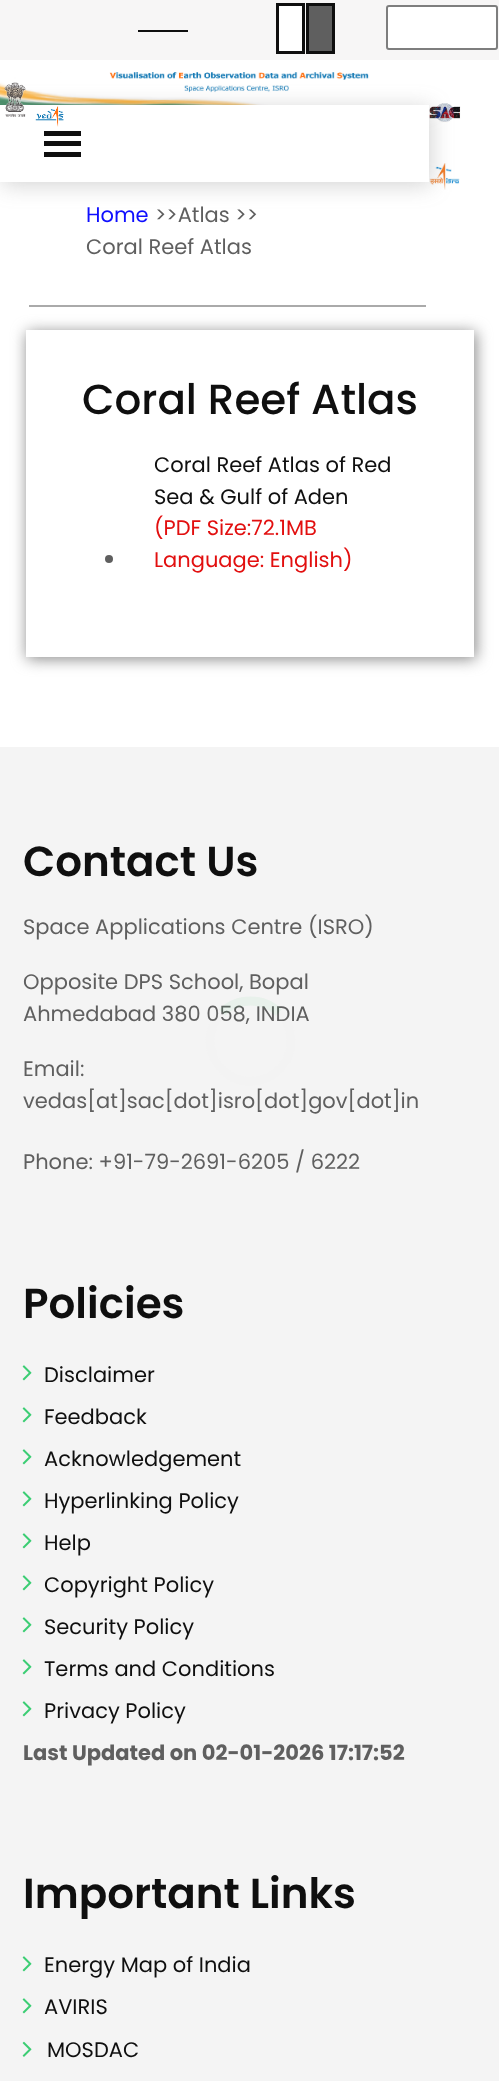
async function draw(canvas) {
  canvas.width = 499
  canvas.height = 2081
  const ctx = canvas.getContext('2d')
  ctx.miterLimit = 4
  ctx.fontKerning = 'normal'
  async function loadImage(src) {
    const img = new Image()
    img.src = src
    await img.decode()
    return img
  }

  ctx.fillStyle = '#fff'
  ctx.fillRect(0, 0, 499, 2081)
  ctx.fillStyle = '#f7f6f6'
  ctx.fillRect(0, 0, 499, 60)
  ctx.fillStyle = '#0f0f0f'
  ctx.fillRect(138, 30, 50, 2)
  ctx.fillStyle = '#fff'
  ctx.beginPath()
  ctx.rect(277.5, 4.5, 26, 48)
  ctx.fill()
  ctx.strokeStyle = '#0f0f0f'
  ctx.lineWidth = 3
  ctx.stroke()
  ctx.fillStyle = '#5f5f5f'
  ctx.beginPath()
  ctx.rect(307.5, 4.5, 26, 48)
  ctx.fill()
  ctx.stroke()
  ctx.fillStyle = '#fff'
  ctx.beginPath()
  ctx.roundRect(387, 6, 110, 43, 2)
  ctx.fill()
  ctx.strokeStyle = '#7e7e7e'
  ctx.lineWidth = 2
  ctx.stroke()
  ctx.drawImage(await loadImage('image0.png'), 0, 72, 369, 33)
  ctx.drawImage(await loadImage('image3.png'), 429, 103, 32, 20)
  ctx.drawImage(await loadImage('image4.png'), 429, 163, 31, 27)
  ctx.fillStyle = '#6d6d6d4d'
  ctx.filter = 'blur(11px)'
  ctx.beginPath()
  ctx.rect(2, 108, 429, 77)
  ctx.fill()
  ctx.filter = 'none'
  ctx.fillStyle = '#fff'
  ctx.fillRect(0, 105, 429, 77)
  ctx.drawImage(await loadImage('image1.png'), 4, 82, 22, 35)
  ctx.drawImage(await loadImage('image2.png'), 35, 106, 29, 21)
  ctx.fillStyle = '#0f0f0f'
  ctx.fillRect(44, 131, 37, 5)
  ctx.fillRect(44, 141, 37, 5)
  ctx.fillRect(44, 152, 37, 5)
  ctx.fillStyle = '#aaa'
  ctx.fillRect(29, 305, 397, 2)
  ctx.font = '21px Poppins'
  ctx.fillStyle = '#0f0fff'
  ctx.fillText('Home', 86, 222)
  ctx.fillStyle = '#5f5f5f'
  ctx.fillText('>>Atlas >>', 155, 222)
  ctx.fillText('Coral Reef Atlas', 86, 254)
  ctx.save()
  ctx.beginPath()
  ctx.moveTo(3, 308)
  ctx.lineTo(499, 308)
  ctx.lineTo(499, 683)
  ctx.lineTo(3, 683)
  ctx.closePath()
  ctx.moveTo(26, 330)
  ctx.lineTo(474, 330)
  ctx.lineTo(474, 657)
  ctx.lineTo(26, 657)
  ctx.closePath()
  ctx.clip('evenodd')
  ctx.fillStyle = '#888'
  ctx.filter = 'blur(7.5px)'
  ctx.beginPath()
  ctx.rect(27, 332, 449, 327)
  ctx.fill()
  ctx.filter = 'none'
  ctx.restore()
  ctx.font = '500 42px Poppins'
  ctx.fillStyle = '#0f0f0f'
  ctx.fillText('Coral Reef Atlas', 82, 414)
  ctx.fillStyle = '#5f5f5f'
  ctx.beginPath()
  ctx.arc(109, 559, 4, 0, 2 * Math.PI)
  ctx.fill()
  ctx.font = '21px Poppins'
  ctx.fillStyle = '#0f0f0f'
  ctx.fillText('Coral Reef Atlas of Red', 154, 472)
  ctx.fillText('Sea & Gulf of Aden', 154, 504)
  ctx.fillStyle = '#e20f0f'
  ctx.fillText('(PDF Size:72.1MB', 154, 535)
  ctx.fillText('Language: English)', 154, 567)
  ctx.fillStyle = '#f4f4f4'
  ctx.fillRect(0, 747, 499, 1334)
  ctx.font = '600 42px Poppins'
  ctx.fillStyle = '#0f0f0f'
  ctx.fillText('Contact Us', 23, 876)
  ctx.font = '21px Poppins'
  ctx.fillStyle = '#5f5f5f'
  ctx.fillText('Space Applications Centre (ISRO)', 23, 934)
  ctx.fillText('Opposite DPS School, Bopal', 23, 989)
  ctx.fillText('Ahmedabad 380 058, INDIA', 23, 1021)
  ctx.fillText('Email:', 23, 1076)
  ctx.fillText('vedas[at]sac[dot]isro[dot]gov[dot]in', 23, 1108)
  ctx.fillText('Phone: +91-79-2691-6205 / 6222', 23, 1169)
  ctx.font = '600 42px Poppins'
  ctx.fillStyle = '#0f0f0f'
  ctx.fillText('Policies', 23, 1318)
  ctx.drawImage(await loadImage('image5.png'), 22, 1365, 10, 16)
  ctx.font = '21px Poppins'
  ctx.fillText('Disclaimer', 44, 1382)
  ctx.drawImage(await loadImage('image5.png'), 22, 1407, 10, 16)
  ctx.fillText('Feedback', 44, 1424)
  ctx.drawImage(await loadImage('image5.png'), 22, 1449, 10, 16)
  ctx.fillText('Acknowledgement', 44, 1466)
  ctx.drawImage(await loadImage('image5.png'), 22, 1491, 10, 16)
  ctx.fillText('Hyperlinking Policy', 44, 1508)
  ctx.drawImage(await loadImage('image5.png'), 22, 1533, 10, 16)
  ctx.fillText('Help', 44, 1550)
  ctx.drawImage(await loadImage('image5.png'), 22, 1575, 10, 16)
  ctx.fillText('Copyright Policy', 44, 1592)
  ctx.drawImage(await loadImage('image5.png'), 22, 1617, 10, 16)
  ctx.fillText('Security Policy', 44, 1634)
  ctx.drawImage(await loadImage('image5.png'), 22, 1659, 10, 16)
  ctx.fillText('Terms and Conditions', 44, 1676)
  ctx.drawImage(await loadImage('image5.png'), 22, 1701, 10, 16)
  ctx.fillText('Privacy Policy', 44, 1718)
  ctx.font = 'bold 21px Poppins'
  ctx.fillStyle = '#5f5f5f'
  ctx.fillText('Last Updated on 02-01-2026 17:17:52', 23, 1760)
  ctx.font = '600 42px Poppins'
  ctx.fillStyle = '#0f0f0f'
  ctx.fillText('Important Links', 23, 1908)
  ctx.drawImage(await loadImage('image5.png'), 22, 1956, 10, 16)
  ctx.font = '21px Poppins'
  ctx.fillText('Energy Map of India', 44, 1972)
  ctx.drawImage(await loadImage('image5.png'), 22, 1998, 10, 16)
  ctx.fillText('AVIRIS', 44, 2014)
  ctx.drawImage(await loadImage('image6.png'), 22, 2041, 10, 16)
  ctx.fillText('MOSDAC', 47, 2057)
  ctx.beginPath()
  ctx.moveTo(222, 1012.5)
  ctx.bezierCurveTo(237.5, 997, 263.5, 997, 279, 1012.5)
  ctx.strokeStyle = '#2eca6a0f'
  ctx.lineWidth = 9
  ctx.stroke()
  ctx.beginPath()
  ctx.moveTo(279, 1012.5)
  ctx.bezierCurveTo(286.5, 1020, 291, 1030.5, 291, 1041)
  ctx.bezierCurveTo(291, 1077, 247, 1095, 222, 1069.5)
  ctx.bezierCurveTo(216, 1064, 212.5, 1056.5, 211, 1049)
  ctx.bezierCurveTo(208, 1036, 212.5, 1022, 222, 1012.5)
  ctx.strokeStyle = '#f2f2f20f'
  ctx.stroke()
}

draw(document.querySelector('canvas'))
